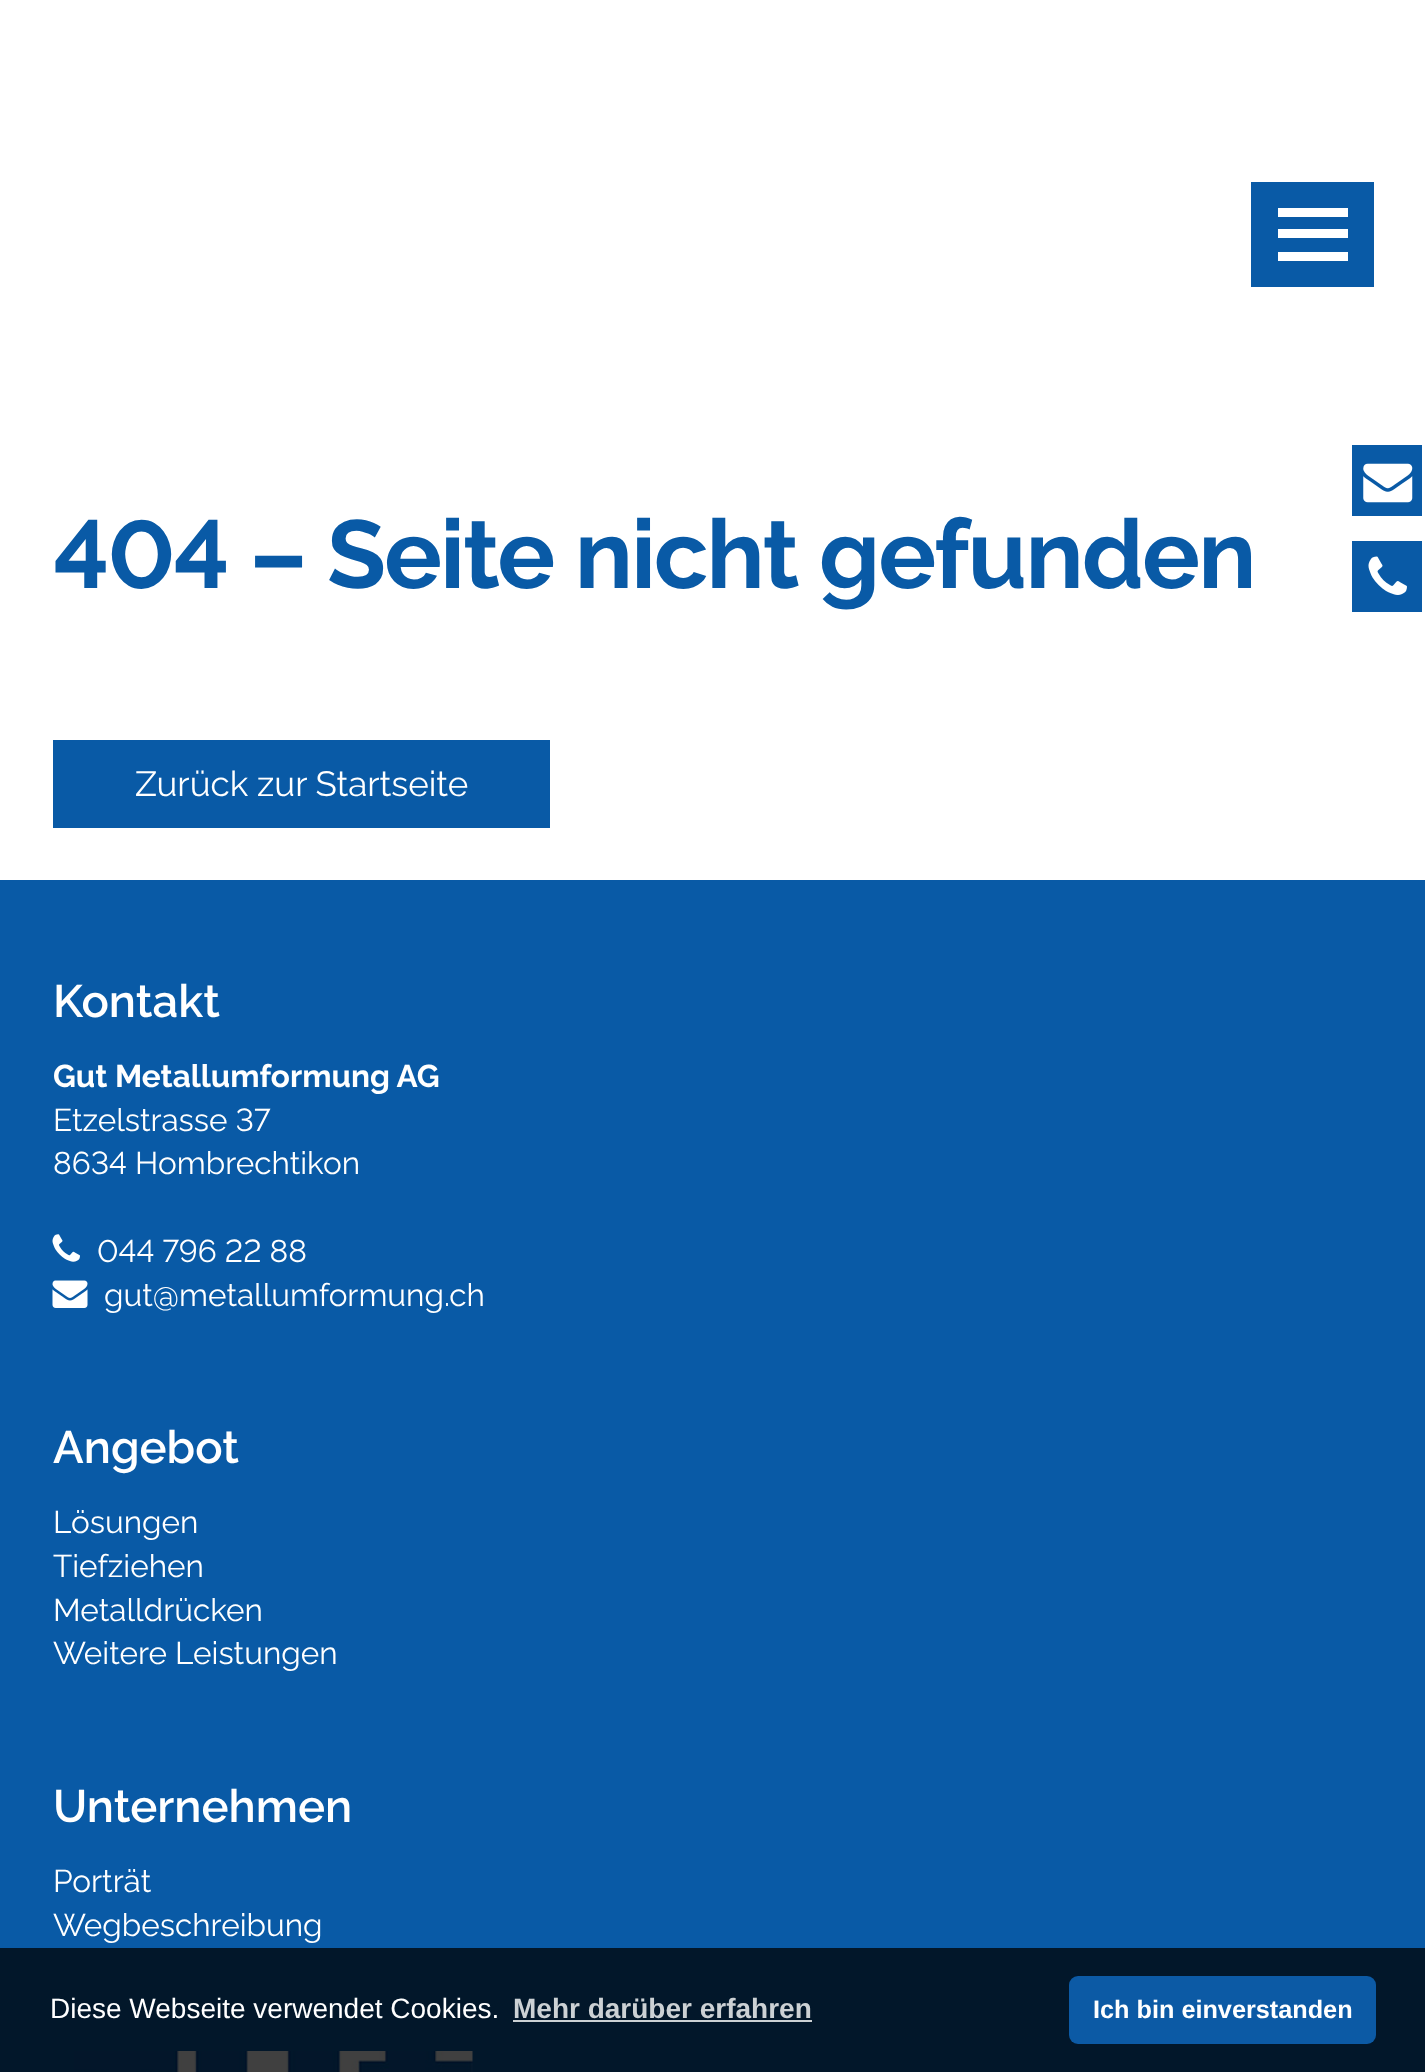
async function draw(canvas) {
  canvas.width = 1425
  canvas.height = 2072
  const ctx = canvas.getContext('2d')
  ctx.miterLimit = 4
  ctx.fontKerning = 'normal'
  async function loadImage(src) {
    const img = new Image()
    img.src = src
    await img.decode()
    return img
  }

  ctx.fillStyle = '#fff'
  ctx.fillRect(0, 0, 1425, 2072)
  ctx.fillStyle = '#095aa6'
  ctx.fillRect(1251, 182, 123, 105)
  ctx.fillStyle = '#fff'
  ctx.fillRect(1278, 208, 70, 9)
  ctx.fillRect(1278, 229, 70, 9)
  ctx.fillRect(1278, 252, 70, 9)
  ctx.letterSpacing = '-1.75px'
  ctx.font = 'bold 96.25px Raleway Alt'
  ctx.fillStyle = '#095aa6'
  ctx.fillText('404 – Seite nicht gefunden', 53, 588)
  ctx.fillRect(53, 740, 497, 88)
  ctx.letterSpacing = '0px'
  ctx.font = '35px Raleway'
  ctx.fillStyle = '#fff'
  ctx.fillText('Zurück zur Startseite', 135, 796)
  ctx.fillStyle = '#095aa6'
  ctx.fillRect(1352, 445, 70, 71)
  ctx.drawImage(await loadImage('image0.png'), 1363, 463, 50, 40)
  ctx.fillRect(1352, 541, 70, 71)
  ctx.drawImage(await loadImage('image1.png'), 1368, 556, 39, 39)
  ctx.fillRect(0, 880, 1425, 1068)
  ctx.fillStyle = '#02172a'
  ctx.fillRect(0, 1948, 1425, 124)
  ctx.font = '600 45.5px Raleway'
  ctx.fillStyle = '#fff'
  ctx.fillText('Kontakt', 53, 1017)
  ctx.font = 'bold 31.5px Raleway'
  ctx.fillText('Gut Metallumformung AG', 53, 1087)
  ctx.font = '31.5px Raleway Alt'
  ctx.fillText('Etzelstrasse 37', 53, 1131)
  ctx.fillText('8634 Hombrechtikon', 53, 1174)
  ctx.drawImage(await loadImage('image2.png'), 52, 1234, 28, 28)
  ctx.fillText('044 796 22 88', 97, 1262)
  ctx.drawImage(await loadImage('image3.png'), 52, 1280, 36, 28)
  ctx.font = '31.5px Raleway'
  ctx.fillText('gut@metallumformung.ch', 104, 1306)
  ctx.font = '600 45.5px Raleway'
  ctx.fillText('Angebot', 53, 1463)
  ctx.font = '31.5px Raleway'
  ctx.fillText('Lösungen', 53, 1533)
  ctx.fillText('Tiefziehen', 53, 1577)
  ctx.fillText('Metalldrücken', 53, 1621)
  ctx.fillText('Weitere Leistungen', 53, 1664)
  ctx.font = '600 45.5px Raleway'
  ctx.fillText('Unternehmen', 53, 1822)
  ctx.font = '31.5px Raleway'
  ctx.fillText('Porträt', 53, 1892)
  ctx.fillText('Wegbeschreibung', 53, 1936)
  ctx.drawImage(await loadImage('image4.png'), 74, 2051, 399, 21)
  ctx.font = '28px Liberation Sans'
  ctx.fillText('Diese Webseite verwendet Cookies.', 50, 2018)
  ctx.font = 'bold 28px Liberation Sans'
  ctx.fillStyle = '#ccd1d4'
  ctx.fillText('Mehr darüber erfahren', 513, 2018)
  ctx.fillRect(513, 2020, 299, 2)
  ctx.fillStyle = '#0c5aa5'
  ctx.beginPath()
  ctx.roundRect(1069, 1976, 307, 68, 9)
  ctx.fill()
  ctx.font = 'bold 25.25px Liberation Sans'
  ctx.fillStyle = '#fff'
  ctx.fillText('Ich bin einverstanden', 1093, 2018)
}

draw(document.querySelector('canvas'))
